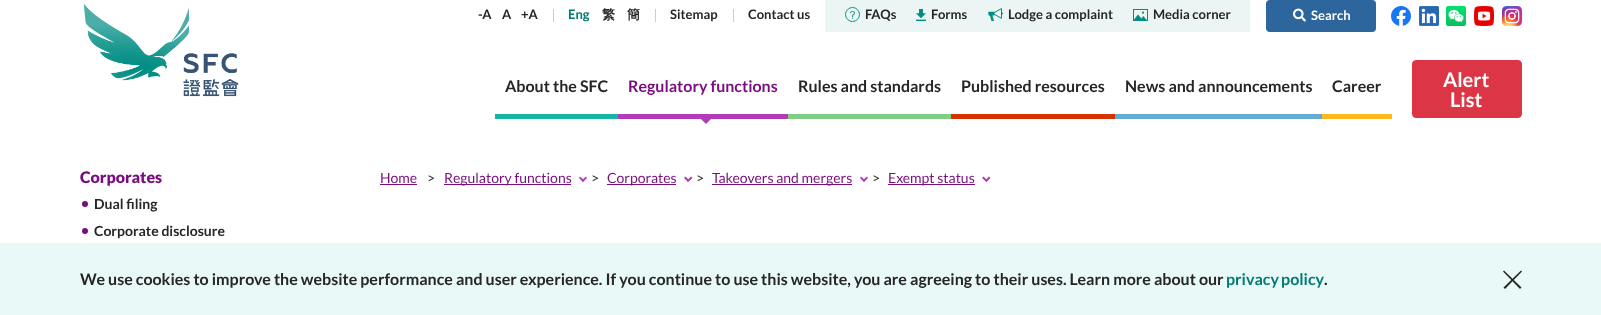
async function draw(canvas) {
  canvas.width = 1601
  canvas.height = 315
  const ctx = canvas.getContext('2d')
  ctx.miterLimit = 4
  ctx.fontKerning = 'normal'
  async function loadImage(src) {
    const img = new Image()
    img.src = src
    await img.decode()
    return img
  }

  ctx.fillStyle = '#fff'
  ctx.fillRect(0, 0, 1601, 315)
  ctx.drawImage(await loadImage('image0.png'), 83, 3, 156, 94)
  ctx.font = 'bold 13px Lato'
  ctx.fillStyle = '#262626'
  ctx.fillText('-A', 478, 19)
  ctx.fillText('A', 502, 19)
  ctx.fillText('+A', 521, 19)
  ctx.fillStyle = '#ccc'
  ctx.fillRect(553, 9, 1, 13)
  ctx.fillStyle = '#007a72'
  ctx.fillText('Eng', 568, 19)
  ctx.font = 'bold 13px WenQuanYi Zen Hei'
  ctx.fillStyle = '#262626'
  ctx.fillText('繁', 602, 19)
  ctx.fillText('簡', 627, 19)
  ctx.fillStyle = '#ccc'
  ctx.fillRect(655, 9, 1, 13)
  ctx.font = 'bold 13px Lato'
  ctx.fillStyle = '#262626'
  ctx.fillText('Sitemap', 670, 19)
  ctx.fillStyle = '#ccc'
  ctx.fillRect(733, 9, 1, 13)
  ctx.fillStyle = '#262626'
  ctx.fillText('Contact us', 748, 19)
  ctx.fillStyle = '#ebf5f3'
  ctx.fillRect(825, 0, 425, 32)
  ctx.drawImage(await loadImage('image1.png'), 845, 7, 15, 15)
  ctx.fillStyle = '#262626'
  ctx.fillText('FAQs', 865, 19)
  ctx.drawImage(await loadImage('image2.png'), 916, 9, 10, 12)
  ctx.fillText('Forms', 931, 19)
  ctx.drawImage(await loadImage('image3.png'), 988, 8, 15, 13)
  ctx.fillText('Lodge a complaint', 1008, 19)
  ctx.drawImage(await loadImage('image4.png'), 1133, 9, 15, 12)
  ctx.fillText('Media corner', 1153, 19)
  ctx.fillStyle = '#2d669d'
  ctx.beginPath()
  ctx.roundRect(1267, 1, 108, 30, 3)
  ctx.fill()
  ctx.strokeStyle = '#2d669d'
  ctx.lineWidth = 2
  ctx.stroke()
  ctx.drawImage(await loadImage('image5.png'), 1293, 8, 13, 14)
  ctx.fillStyle = '#fff'
  ctx.fillText('Search', 1311, 20)
  ctx.drawImage(await loadImage('image6.png'), 1391, 6, 20, 20)
  ctx.drawImage(await loadImage('image7.png'), 1419, 6, 20, 20)
  ctx.drawImage(await loadImage('image8.png'), 1446, 6, 20, 20)
  ctx.drawImage(await loadImage('image9.png'), 1474, 6, 20, 20)
  ctx.drawImage(await loadImage('image10.png'), 1502, 6, 20, 20)
  ctx.fillStyle = '#17b4a5'
  ctx.fillRect(495, 114, 123, 5)
  ctx.font = 'bold 16px Lato'
  ctx.fillStyle = '#262626'
  ctx.fillText('About the SFC', 505, 92)
  ctx.fillStyle = '#b13bb8'
  ctx.fillRect(618, 114, 170, 5)
  ctx.fillStyle = '#790f7f'
  ctx.fillText('Regulatory functions', 628, 92)
  ctx.fillStyle = '#b13bb8'
  ctx.beginPath()
  ctx.moveTo(700, 118)
  ctx.lineTo(712, 118)
  ctx.lineTo(706, 124)
  ctx.closePath()
  ctx.fill()
  ctx.fillStyle = '#7fd084'
  ctx.fillRect(788, 114, 163, 5)
  ctx.fillStyle = '#262626'
  ctx.fillText('Rules and standards', 798, 92)
  ctx.fillStyle = '#d63200'
  ctx.fillRect(951, 114, 164, 5)
  ctx.fillStyle = '#262626'
  ctx.fillText('Published resources', 961, 92)
  ctx.fillStyle = '#66aad6'
  ctx.fillRect(1115, 114, 207, 5)
  ctx.fillStyle = '#262626'
  ctx.fillText('News and announcements', 1125, 92)
  ctx.fillStyle = '#ffb81d'
  ctx.fillRect(1322, 114, 70, 5)
  ctx.fillStyle = '#262626'
  ctx.fillText('Career', 1332, 92)
  ctx.fillStyle = '#dc3545'
  ctx.beginPath()
  ctx.roundRect(1412.5, 60.5, 109, 57, 3.5)
  ctx.fill()
  ctx.strokeStyle = '#dc3545'
  ctx.lineWidth = 1
  ctx.stroke()
  ctx.font = 'bold 20px Lato'
  ctx.fillStyle = '#fff'
  ctx.fillText('Alert', 1443, 87)
  ctx.fillText('List', 1450, 107)
  ctx.font = '900 16px Lato'
  ctx.fillStyle = '#790f7f'
  ctx.fillText('Corporates', 80, 183)
  ctx.beginPath()
  ctx.arc(85, 204, 3, 0, 2 * Math.PI)
  ctx.fill()
  ctx.font = 'bold 14px Lato'
  ctx.fillStyle = '#262626'
  ctx.fillText('Dual filing', 94, 209)
  ctx.fillStyle = '#790f7f'
  ctx.beginPath()
  ctx.arc(85, 231, 3, 0, 2 * Math.PI)
  ctx.fill()
  ctx.fillStyle = '#262626'
  ctx.fillText('Corporate disclosure', 94, 236)
  ctx.font = '14px Lato'
  ctx.fillStyle = '#790f7f'
  ctx.fillText('Home', 380, 183)
  ctx.fillRect(380, 184, 37, 1)
  ctx.fillStyle = '#262626'
  ctx.fillText('>', 427, 183)
  ctx.fillStyle = '#790f7f'
  ctx.fillRect(444, 184, 127, 1)
  ctx.fillText('Regulatory functions', 444, 183)
  ctx.fillStyle = '#b13bb8'
  ctx.beginPath()
  ctx.moveTo(586, 176.5)
  ctx.lineTo(587, 178)
  ctx.lineTo(583, 182)
  ctx.lineTo(581.5, 180.5)
  ctx.closePath()
  ctx.fill()
  ctx.beginPath()
  ctx.moveTo(580, 176.5)
  ctx.lineTo(584.5, 180.5)
  ctx.lineTo(583, 182)
  ctx.lineTo(579, 178)
  ctx.closePath()
  ctx.fill()
  ctx.fillStyle = '#262626'
  ctx.fillText('>', 591, 183)
  ctx.fillStyle = '#790f7f'
  ctx.fillRect(607, 184, 69, 1)
  ctx.fillText('Corporates', 607, 183)
  ctx.fillStyle = '#b13bb8'
  ctx.beginPath()
  ctx.moveTo(691, 176.5)
  ctx.lineTo(692.5, 178)
  ctx.lineTo(688, 182)
  ctx.lineTo(687, 180.5)
  ctx.closePath()
  ctx.fill()
  ctx.beginPath()
  ctx.moveTo(685.5, 176.5)
  ctx.lineTo(689.5, 180.5)
  ctx.lineTo(688, 182)
  ctx.lineTo(684, 178)
  ctx.closePath()
  ctx.fill()
  ctx.fillStyle = '#262626'
  ctx.fillText('>', 696, 183)
  ctx.fillStyle = '#790f7f'
  ctx.fillRect(712, 184, 140, 1)
  ctx.fillText('Takeovers and mergers', 712, 183)
  ctx.fillStyle = '#b13bb8'
  ctx.beginPath()
  ctx.moveTo(867, 176.5)
  ctx.lineTo(868, 178)
  ctx.lineTo(864, 182)
  ctx.lineTo(862.5, 180.5)
  ctx.closePath()
  ctx.fill()
  ctx.beginPath()
  ctx.moveTo(861, 176.5)
  ctx.lineTo(865.5, 180.5)
  ctx.lineTo(864, 182)
  ctx.lineTo(860, 178)
  ctx.closePath()
  ctx.fill()
  ctx.fillStyle = '#262626'
  ctx.fillText('>', 872, 183)
  ctx.fillStyle = '#790f7f'
  ctx.fillRect(888, 184, 87, 1)
  ctx.fillText('Exempt status', 888, 183)
  ctx.fillStyle = '#b13bb8'
  ctx.beginPath()
  ctx.moveTo(989, 176.5)
  ctx.lineTo(990.5, 178)
  ctx.lineTo(986.5, 182)
  ctx.lineTo(985, 180.5)
  ctx.closePath()
  ctx.fill()
  ctx.beginPath()
  ctx.moveTo(983.5, 176.5)
  ctx.lineTo(987.5, 180.5)
  ctx.lineTo(986.5, 182)
  ctx.lineTo(982, 178)
  ctx.closePath()
  ctx.fill()
  ctx.fillStyle = '#e8f9f8'
  ctx.fillRect(0, 243, 1601, 72)
  ctx.font = 'bold 16px Lato'
  ctx.fillStyle = '#262626'
  ctx.fillText('We use cookies to improve the website performance and user experience. If you continue to use this website, you are agreeing to their uses. Learn more about our', 80, 285)
  ctx.wordSpacing = '-1px'
  ctx.fillStyle = '#007a72'
  ctx.fillText('privacy policy', 1226, 285)
  ctx.wordSpacing = '0px'
  ctx.fillStyle = '#262626'
  ctx.fillText('.', 1324, 285)
  ctx.beginPath()
  ctx.moveTo(1504, 270.5)
  ctx.lineTo(1521.5, 287.5)
  ctx.lineTo(1520, 289)
  ctx.lineTo(1503, 271.5)
  ctx.closePath()
  ctx.fill()
  ctx.beginPath()
  ctx.moveTo(1503.5, 287.5)
  ctx.lineTo(1521, 270.5)
  ctx.lineTo(1522, 271.5)
  ctx.lineTo(1505, 289)
  ctx.closePath()
  ctx.fill()
}

draw(document.querySelector('canvas'))
